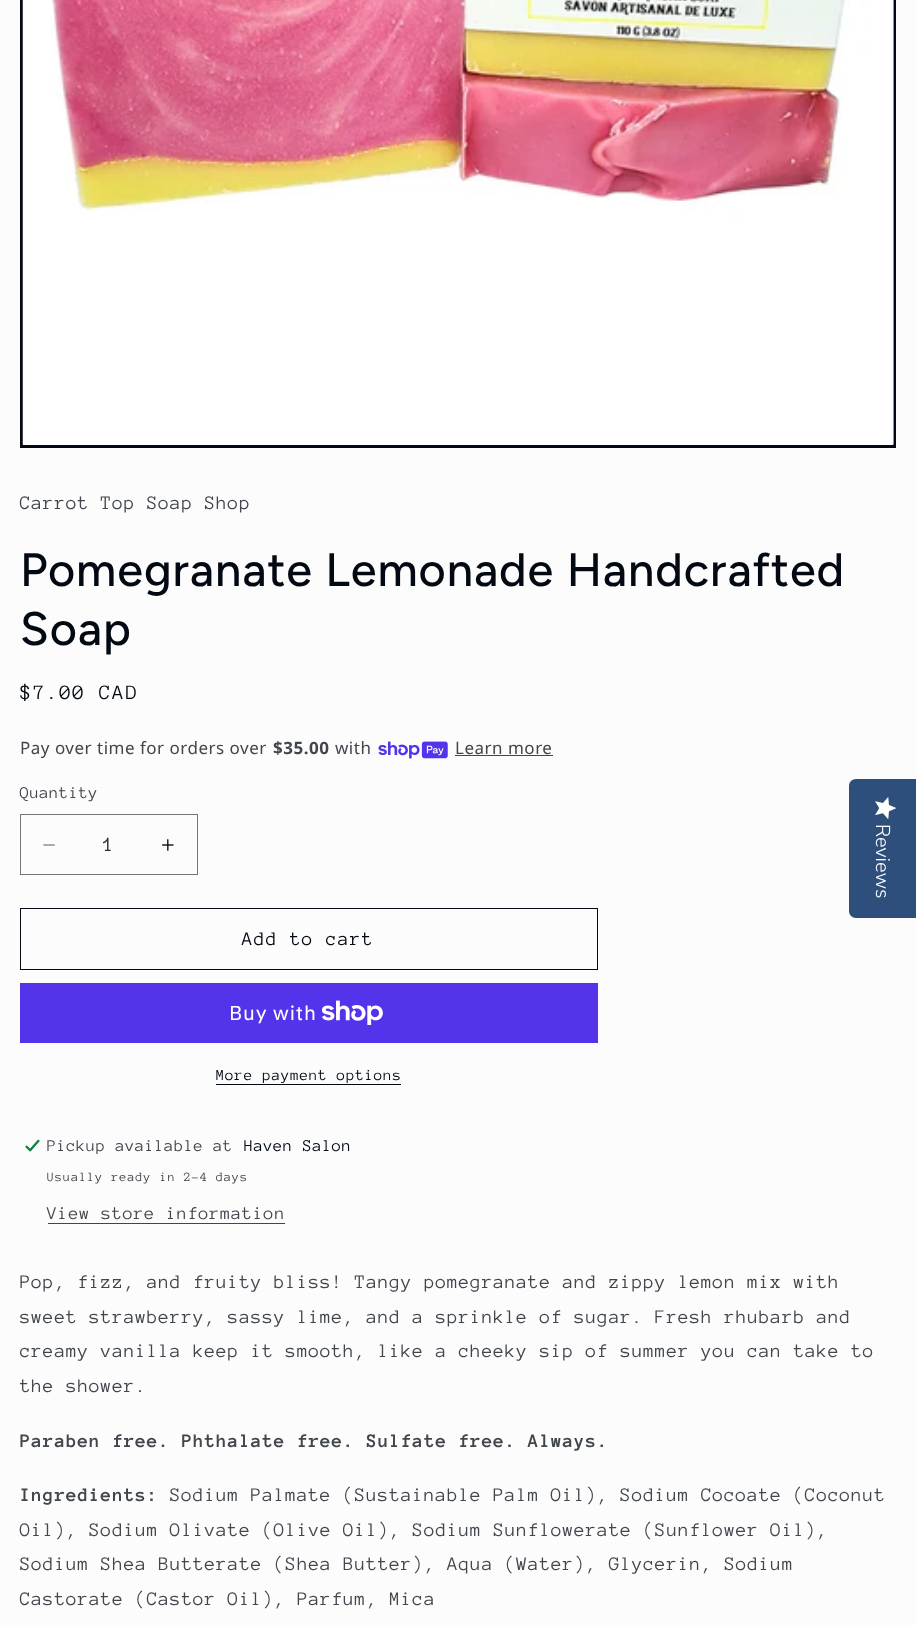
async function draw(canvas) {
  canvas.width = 916
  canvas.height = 1625
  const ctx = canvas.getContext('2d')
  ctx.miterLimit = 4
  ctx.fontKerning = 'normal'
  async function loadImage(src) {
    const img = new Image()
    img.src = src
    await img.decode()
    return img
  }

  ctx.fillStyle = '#fcfcfc'
  ctx.fillRect(0, 0, 916, 1625)
  ctx.strokeStyle = '#020912'
  ctx.lineWidth = 3
  ctx.strokeRect(21.5, -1.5, 873, 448)
  ctx.drawImage(await loadImage('image0.png'), 22, 0, 872, 445)
  ctx.letterSpacing = '0.8px'
  ctx.font = '19.7px Anonymous Pro'
  ctx.fillStyle = '#41464d'
  ctx.fillText('Carrot Top Soap Shop', 20, 509)
  ctx.letterSpacing = '0.95px'
  ctx.font = '500 46.9px Figtree'
  ctx.fillStyle = '#020912'
  ctx.fillText('Pomegranate Lemonade Handcrafted', 20, 586)
  ctx.fillText('Soap', 20, 645)
  ctx.letterSpacing = '1.75px'
  ctx.font = '21px Anonymous Pro'
  ctx.fillText('$7.00 CAD', 20, 699)
  ctx.letterSpacing = '0.5px'
  ctx.font = '17px Noto Sans'
  ctx.fillStyle = '#41464d'
  ctx.fillText('Pay over time for orders over', 20, 754)
  ctx.font = 'bold 17px Noto Sans'
  ctx.fillText('$35.00', 273, 754)
  ctx.font = '17px Noto Sans'
  ctx.fillText('with', 335, 754)
  ctx.drawImage(await loadImage('image1.png'), 378, 741, 70, 18)
  ctx.fillText('Learn more', 455, 754)
  ctx.fillRect(455, 755, 98, 1)
  ctx.font = '17px Anonymous Pro'
  ctx.fillText('Quantity', 20, 798)
  ctx.drawImage(await loadImage('image2.png'), 43, 844, 12, 2)
  ctx.drawImage(await loadImage('image3.png'), 162, 839, 12, 12)
  ctx.strokeStyle = '#72767b'
  ctx.lineWidth = 1
  ctx.strokeRect(20.5, 814.5, 177, 60)
  ctx.letterSpacing = '0px'
  ctx.font = '21px Anonymous Pro'
  ctx.fillStyle = '#282d35'
  ctx.fillText('1', 103, 851)
  ctx.strokeStyle = '#020912'
  ctx.strokeRect(20.5, 908.5, 577, 61)
  ctx.letterSpacing = '1.25px'
  ctx.font = '19.7px Anonymous Pro'
  ctx.fillStyle = '#020912'
  ctx.fillText('Add to cart', 242, 945)
  ctx.fillStyle = '#5433eb'
  ctx.fillRect(20, 983, 578, 60)
  ctx.letterSpacing = '0.8px'
  ctx.font = '20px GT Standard'
  ctx.fillStyle = '#fff'
  ctx.fillText('Buy with', 229, 1020)
  ctx.drawImage(await loadImage('image4.png'), 321, 1000, 62, 25)
  ctx.letterSpacing = '0.7px'
  ctx.font = '15.75px Anonymous Pro'
  ctx.fillStyle = '#020912'
  ctx.fillText('More payment options', 216, 1080)
  ctx.fillRect(216, 1084, 185, 1)
  ctx.drawImage(await loadImage('image5.png'), 24, 1139, 17, 13)
  ctx.letterSpacing = '0.5px'
  ctx.font = '17px Anonymous Pro'
  ctx.fillStyle = '#41464d'
  ctx.fillText('Pickup available at', 47, 1151)
  ctx.fillStyle = '#020912'
  ctx.fillText('Haven Salon', 244, 1151)
  ctx.letterSpacing = '0.9px'
  ctx.font = '13.1px Anonymous Pro'
  ctx.fillStyle = '#41464d'
  ctx.fillText('Usually ready in 2-4 days', 47, 1181)
  ctx.letterSpacing = '0.8px'
  ctx.font = '18.4px Anonymous Pro'
  ctx.fillText('View store information', 47, 1219)
  ctx.fillRect(48, 1223, 237, 1)
  ctx.font = '19.7px Anonymous Pro'
  ctx.fillText('Pop, fizz, and fruity bliss! Tangy pomegranate and zippy lemon mix with', 20, 1288)
  ctx.fillText('sweet strawberry, sassy lime, and a sprinkle of sugar. Fresh rhubarb and', 20, 1323)
  ctx.fillText('creamy vanilla keep it smooth, like a cheeky sip of summer you can take to', 20, 1357)
  ctx.fillText('the shower.', 20, 1392)
  ctx.font = 'bold 19.7px Anonymous Pro'
  ctx.fillText('Paraben free. Phthalate free. Sulfate free. Always.', 20, 1447)
  ctx.fillText('Ingredients:', 20, 1501)
  ctx.font = '19.7px Anonymous Pro'
  ctx.fillText('Sodium Palmate (Sustainable Palm Oil), Sodium Cocoate (Coconut', 170, 1501)
  ctx.fillText('Oil), Sodium Olivate (Olive Oil), Sodium Sunflowerate (Sunflower Oil),', 20, 1536)
  ctx.fillText('Sodium Shea Butterate (Shea Butter), Aqua (Water), Glycerin, Sodium', 20, 1570)
  ctx.fillText('Castorate (Castor Oil), Parfum, Mica', 20, 1605)
  ctx.fillStyle = '#2e4f7c'
  ctx.beginPath()
  ctx.moveTo(916, 779)
  ctx.lineTo(916, 918)
  ctx.lineTo(856, 918)
  ctx.bezierCurveTo(852, 918, 849, 915, 849, 911)
  ctx.lineTo(849, 786)
  ctx.bezierCurveTo(849, 782, 852, 779, 856, 779)
  ctx.closePath()
  ctx.fill()
  ctx.drawImage(await loadImage('image6.png'), 875, 797, 22, 23)
  ctx.letterSpacing = '0px'
  ctx.font = '300 20px Nunito Sans'
  ctx.fillStyle = '#fff'
  ctx.save()
  ctx.translate(876, 824)
  ctx.rotate(90 * Math.PI / 180)
  ctx.fillText('Reviews', 0, 0)
  ctx.restore()
}

draw(document.querySelector('canvas'))
